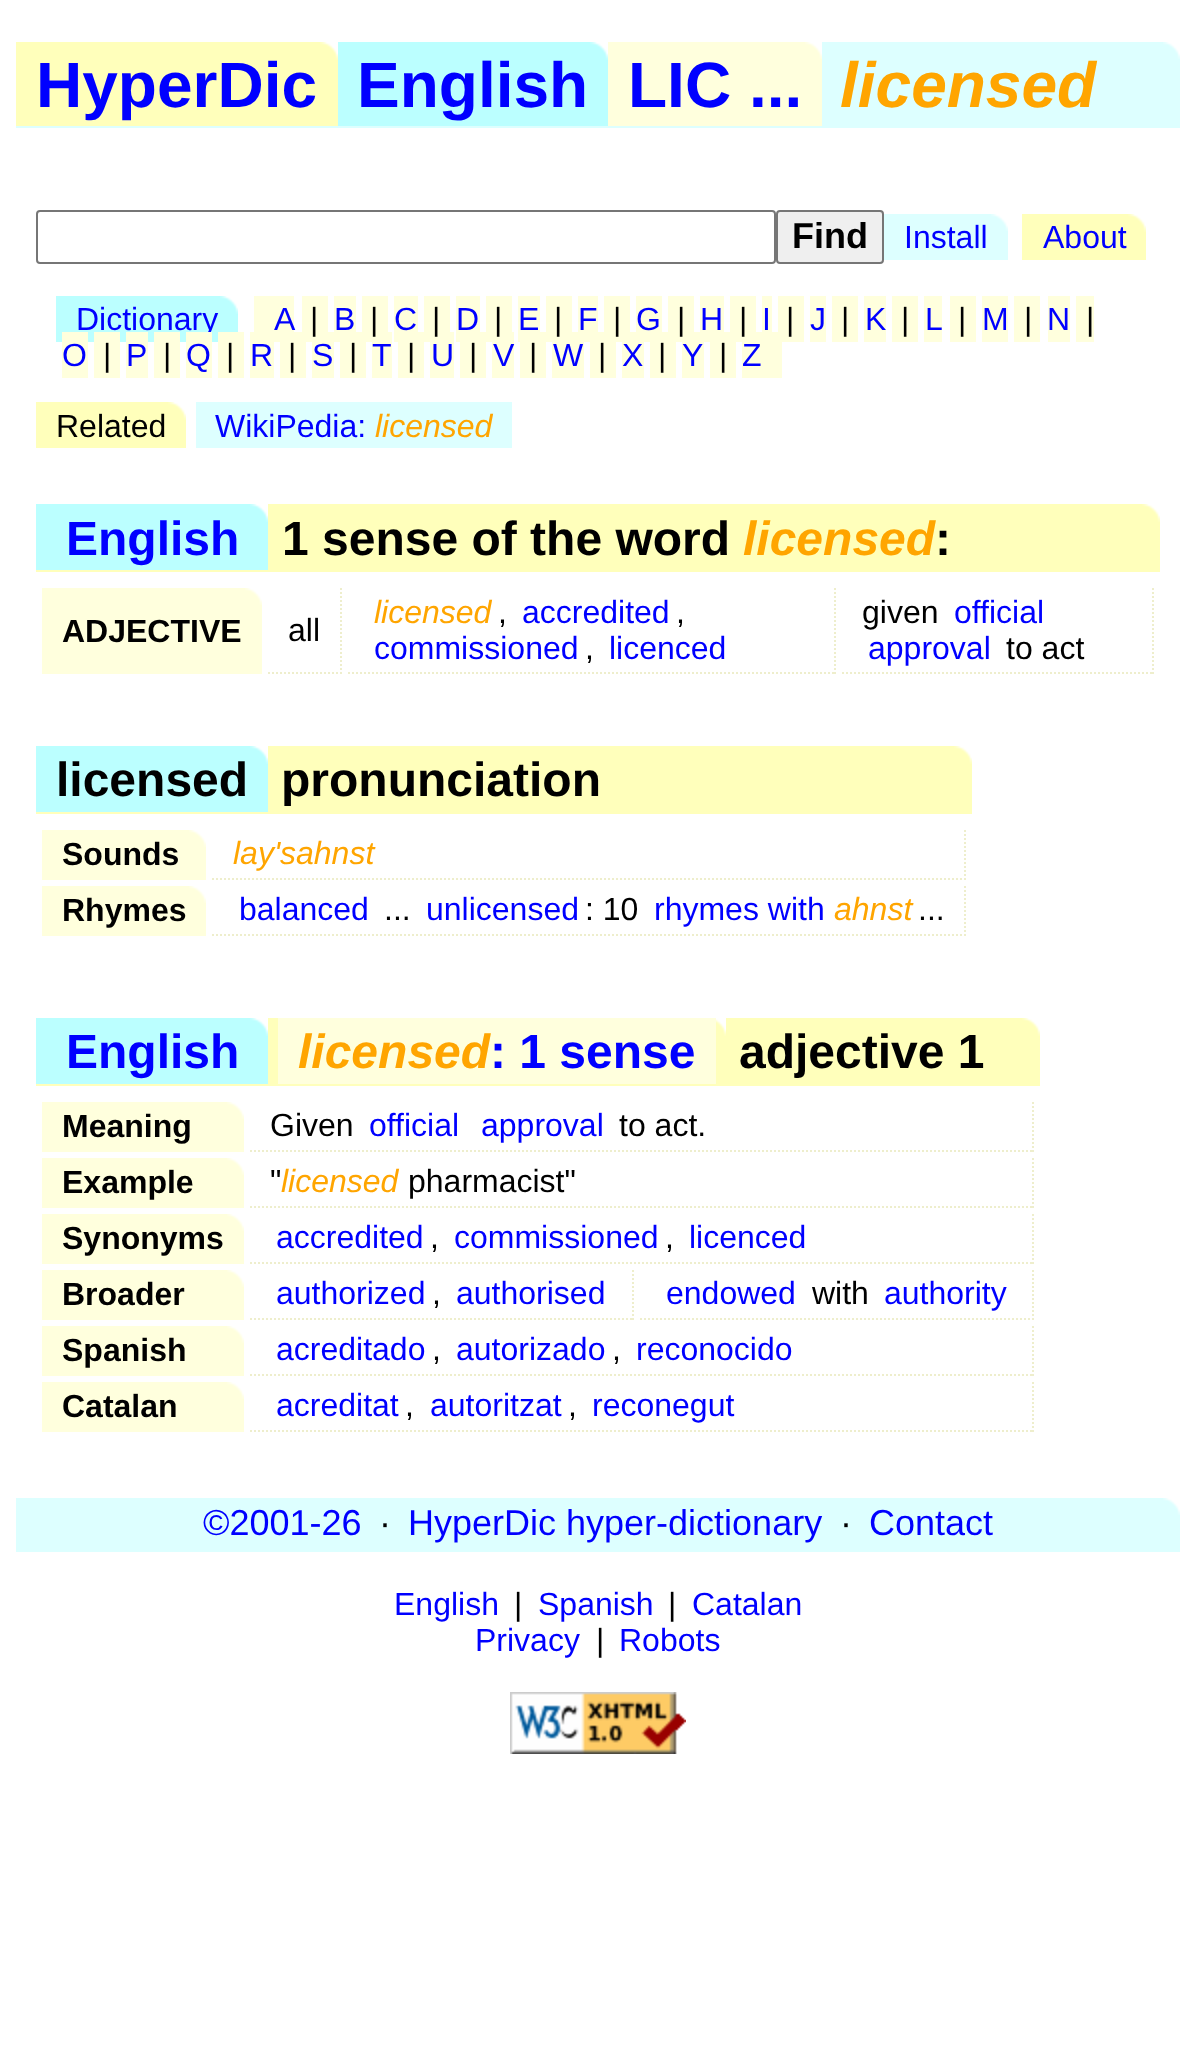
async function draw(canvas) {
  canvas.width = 1196
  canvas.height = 2053
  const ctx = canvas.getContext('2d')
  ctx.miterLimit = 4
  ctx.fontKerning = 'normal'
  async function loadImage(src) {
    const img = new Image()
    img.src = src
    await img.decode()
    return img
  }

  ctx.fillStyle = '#fff'
  ctx.fillRect(0, 0, 1196, 2053)
  ctx.fillStyle = '#dff'
  ctx.fillRect(16, 42, 1164, 86)
  ctx.drawImage(await loadImage('image0.png'), 1163, 42, 17, 17)
  ctx.fillStyle = '#ffb'
  ctx.fillRect(16, 42, 322, 84)
  ctx.drawImage(await loadImage('image1.png'), 320, 42, 18, 18)
  ctx.fillStyle = '#bff'
  ctx.fillRect(338, 42, 270, 84)
  ctx.drawImage(await loadImage('image2.png'), 590, 42, 18, 18)
  ctx.fillStyle = '#ffd'
  ctx.fillRect(608, 42, 214, 84)
  ctx.drawImage(await loadImage('image3.png'), 805, 42, 17, 17)
  ctx.font = 'bold 64px Liberation Sans'
  ctx.fillStyle = '#00f'
  ctx.fillText('HyperDic', 36, 107)
  ctx.fillText('English', 357, 107)
  ctx.fillText('LIC ...', 628, 107)
  ctx.font = 'italic bold 64px Liberation Sans'
  ctx.fillStyle = '#ffa500'
  ctx.fillText('licensed', 840, 107)
  ctx.beginPath()
  ctx.roundRect(37, 211, 738, 52, 3)
  ctx.strokeStyle = '#767676'
  ctx.lineWidth = 2
  ctx.stroke()
  ctx.fillStyle = '#efefef'
  ctx.beginPath()
  ctx.roundRect(777, 211, 106, 52, 3)
  ctx.fill()
  ctx.stroke()
  ctx.font = 'bold 36px Liberation Sans'
  ctx.fillStyle = '#000'
  ctx.fillText('Find', 792, 248)
  ctx.fillStyle = '#dff'
  ctx.fillRect(884, 214, 124, 46)
  ctx.font = '32px Liberation Sans'
  ctx.fillStyle = '#00f'
  ctx.fillText('Install', 904, 248)
  ctx.drawImage(await loadImage('image0.png'), 991, 214, 17, 17)
  ctx.fillStyle = '#ffb'
  ctx.fillRect(1022, 214, 124, 46)
  ctx.fillStyle = '#00f'
  ctx.fillText('About', 1043, 248)
  ctx.drawImage(await loadImage('image1.png'), 1128, 214, 18, 18)
  ctx.fillStyle = '#bff'
  ctx.fillRect(56, 296, 182, 46)
  ctx.fillStyle = '#00f'
  ctx.fillText('Dictionary', 76, 330)
  ctx.drawImage(await loadImage('image2.png'), 220, 296, 18, 18)
  ctx.fillStyle = '#ffd'
  ctx.fillRect(254, 296, 40, 46)
  ctx.fillStyle = '#00f'
  ctx.fillText('A', 274, 330)
  ctx.fillStyle = '#ffd'
  ctx.fillRect(302, 296, 26, 46)
  ctx.fillRect(312, 332, 22, 46)
  ctx.fillStyle = '#000'
  ctx.fillText('|', 310, 330)
  ctx.fillStyle = '#ffd'
  ctx.fillRect(334, 296, 22, 46)
  ctx.fillStyle = '#00f'
  ctx.fillText('B', 334, 330)
  ctx.fillStyle = '#ffd'
  ctx.fillRect(362, 296, 26, 46)
  ctx.fillRect(372, 332, 20, 46)
  ctx.fillStyle = '#000'
  ctx.fillText('|', 370, 330)
  ctx.fillStyle = '#ffd'
  ctx.fillRect(394, 296, 24, 46)
  ctx.fillStyle = '#00f'
  ctx.fillText('C', 394, 330)
  ctx.fillStyle = '#ffd'
  ctx.fillRect(424, 296, 26, 46)
  ctx.fillRect(430, 332, 24, 46)
  ctx.fillStyle = '#000'
  ctx.fillText('|', 432, 330)
  ctx.fillStyle = '#ffd'
  ctx.fillRect(456, 296, 24, 46)
  ctx.fillStyle = '#00f'
  ctx.fillText('D', 456, 330)
  ctx.fillStyle = '#ffd'
  ctx.fillRect(486, 296, 26, 46)
  ctx.fillRect(492, 332, 22, 46)
  ctx.fillStyle = '#000'
  ctx.fillText('|', 494, 330)
  ctx.fillStyle = '#ffd'
  ctx.fillRect(518, 296, 22, 46)
  ctx.fillStyle = '#00f'
  ctx.fillText('E', 518, 330)
  ctx.fillStyle = '#ffd'
  ctx.fillRect(546, 296, 26, 46)
  ctx.fillRect(578, 296, 20, 46)
  ctx.fillRect(552, 332, 32, 46)
  ctx.fillStyle = '#000'
  ctx.fillText('|', 554, 330)
  ctx.fillStyle = '#00f'
  ctx.fillText('F', 578, 330)
  ctx.fillStyle = '#ffd'
  ctx.fillRect(604, 296, 26, 46)
  ctx.fillRect(590, 332, 26, 46)
  ctx.fillStyle = '#000'
  ctx.fillText('|', 613, 330)
  ctx.fillStyle = '#ffd'
  ctx.fillRect(636, 296, 26, 46)
  ctx.fillStyle = '#00f'
  ctx.fillText('G', 636, 330)
  ctx.fillStyle = '#ffd'
  ctx.fillRect(668, 296, 26, 46)
  ctx.fillRect(700, 296, 24, 46)
  ctx.fillRect(682, 332, 22, 46)
  ctx.fillStyle = '#000'
  ctx.fillText('|', 677, 330)
  ctx.fillStyle = '#00f'
  ctx.fillText('H', 700, 330)
  ctx.fillStyle = '#ffd'
  ctx.fillRect(730, 296, 26, 46)
  ctx.fillRect(778, 296, 26, 46)
  ctx.fillRect(742, 332, 40, 46)
  ctx.fillStyle = '#000'
  ctx.fillText('|', 739, 330)
  ctx.fillStyle = '#ffd'
  ctx.fillRect(762, 296, 10, 36)
  ctx.fillStyle = '#00f'
  ctx.fillText('I', 762, 330)
  ctx.fillStyle = '#000'
  ctx.fillText('|', 786, 330)
  ctx.fillStyle = '#ffd'
  ctx.fillRect(810, 296, 16, 46)
  ctx.fillStyle = '#00f'
  ctx.fillText('J', 810, 330)
  ctx.fillStyle = '#ffd'
  ctx.fillRect(832, 296, 26, 46)
  ctx.fillStyle = '#000'
  ctx.fillText('|', 841, 330)
  ctx.fillStyle = '#ffd'
  ctx.fillRect(864, 296, 22, 46)
  ctx.fillStyle = '#00f'
  ctx.fillText('K', 865, 330)
  ctx.fillStyle = '#ffd'
  ctx.fillRect(892, 296, 26, 46)
  ctx.fillStyle = '#000'
  ctx.fillText('|', 901, 330)
  ctx.fillStyle = '#ffd'
  ctx.fillRect(924, 296, 18, 46)
  ctx.fillStyle = '#00f'
  ctx.fillText('L', 925, 330)
  ctx.fillStyle = '#ffd'
  ctx.fillRect(950, 296, 26, 46)
  ctx.fillStyle = '#000'
  ctx.fillText('|', 958, 330)
  ctx.fillStyle = '#ffd'
  ctx.fillRect(982, 296, 26, 46)
  ctx.fillStyle = '#00f'
  ctx.fillText('M', 982, 330)
  ctx.fillStyle = '#ffd'
  ctx.fillRect(1014, 296, 26, 46)
  ctx.fillStyle = '#000'
  ctx.fillText('|', 1024, 330)
  ctx.fillStyle = '#ffd'
  ctx.fillRect(1048, 296, 22, 46)
  ctx.fillStyle = '#00f'
  ctx.fillText('N', 1047, 330)
  ctx.fillStyle = '#ffd'
  ctx.fillRect(1076, 296, 18, 46)
  ctx.fillStyle = '#000'
  ctx.fillText('|', 1086, 330)
  ctx.fillStyle = '#ffd'
  ctx.fillRect(62, 332, 26, 46)
  ctx.fillStyle = '#00f'
  ctx.fillText('O', 62, 366)
  ctx.fillStyle = '#ffd'
  ctx.fillRect(94, 332, 26, 46)
  ctx.fillStyle = '#000'
  ctx.fillText('|', 103, 366)
  ctx.fillStyle = '#ffd'
  ctx.fillRect(126, 332, 22, 46)
  ctx.fillStyle = '#00f'
  ctx.fillText('P', 126, 366)
  ctx.fillStyle = '#ffd'
  ctx.fillRect(154, 332, 26, 46)
  ctx.fillStyle = '#000'
  ctx.fillText('|', 163, 366)
  ctx.fillStyle = '#ffd'
  ctx.fillRect(186, 332, 26, 46)
  ctx.fillStyle = '#00f'
  ctx.fillText('Q', 186, 366)
  ctx.fillStyle = '#ffd'
  ctx.fillRect(218, 332, 26, 46)
  ctx.fillStyle = '#000'
  ctx.fillText('|', 226, 366)
  ctx.fillStyle = '#ffd'
  ctx.fillRect(250, 332, 24, 46)
  ctx.fillStyle = '#00f'
  ctx.fillText('R', 250, 366)
  ctx.fillStyle = '#ffd'
  ctx.fillRect(280, 332, 26, 46)
  ctx.fillStyle = '#000'
  ctx.fillText('|', 288, 366)
  ctx.fillStyle = '#00f'
  ctx.fillText('S', 312, 366)
  ctx.fillStyle = '#ffd'
  ctx.fillRect(340, 332, 26, 46)
  ctx.fillStyle = '#000'
  ctx.fillText('|', 349, 366)
  ctx.fillStyle = '#00f'
  ctx.fillText('T', 372, 366)
  ctx.fillStyle = '#ffd'
  ctx.fillRect(398, 332, 26, 46)
  ctx.fillStyle = '#000'
  ctx.fillText('|', 407, 366)
  ctx.fillStyle = '#00f'
  ctx.fillText('U', 431, 366)
  ctx.fillStyle = '#ffd'
  ctx.fillRect(460, 332, 26, 46)
  ctx.fillStyle = '#000'
  ctx.fillText('|', 469, 366)
  ctx.fillStyle = '#00f'
  ctx.fillText('V', 493, 366)
  ctx.fillStyle = '#ffd'
  ctx.fillRect(520, 332, 26, 46)
  ctx.fillStyle = '#000'
  ctx.fillText('|', 529, 366)
  ctx.fillStyle = '#00f'
  ctx.fillText('W', 553, 366)
  ctx.fillStyle = '#000'
  ctx.fillText('|', 598, 366)
  ctx.fillStyle = '#ffd'
  ctx.fillRect(622, 332, 22, 46)
  ctx.fillStyle = '#00f'
  ctx.fillText('X', 622, 366)
  ctx.fillStyle = '#ffd'
  ctx.fillRect(650, 332, 26, 46)
  ctx.fillStyle = '#000'
  ctx.fillText('|', 658, 366)
  ctx.fillStyle = '#00f'
  ctx.fillText('Y', 682, 366)
  ctx.fillStyle = '#ffd'
  ctx.fillRect(710, 332, 26, 46)
  ctx.fillStyle = '#000'
  ctx.fillText('|', 719, 366)
  ctx.fillStyle = '#00f'
  ctx.fillText('Z', 742, 366)
  ctx.fillStyle = '#ffb'
  ctx.fillRect(36, 402, 150, 46)
  ctx.drawImage(await loadImage('image1.png'), 168, 402, 18, 18)
  ctx.fillStyle = '#000'
  ctx.fillText('Related', 56, 437)
  ctx.fillStyle = '#dff'
  ctx.fillRect(196, 402, 316, 46)
  ctx.fillStyle = '#00f'
  ctx.fillText('WikiPedia:', 215, 437)
  ctx.font = 'italic 32px Liberation Sans'
  ctx.fillStyle = '#ffa500'
  ctx.fillText('licensed', 375, 437)
  ctx.fillStyle = '#ffb'
  ctx.fillRect(36, 504, 1124, 68)
  ctx.drawImage(await loadImage('image1.png'), 1142, 504, 18, 18)
  ctx.fillStyle = '#bff'
  ctx.fillRect(36, 504, 232, 66)
  ctx.drawImage(await loadImage('image2.png'), 250, 504, 18, 18)
  ctx.font = 'bold 48px Liberation Sans'
  ctx.fillStyle = '#00f'
  ctx.fillText('English', 66, 555)
  ctx.fillStyle = '#000'
  ctx.fillText('1 sense of the word', 282, 555)
  ctx.font = 'italic bold 48px Liberation Sans'
  ctx.fillStyle = '#ffa500'
  ctx.fillText('licensed', 743, 555)
  ctx.font = 'bold 48px Liberation Sans'
  ctx.fillStyle = '#000'
  ctx.fillText(':', 935, 555)
  ctx.fillStyle = '#ffd'
  ctx.fillRect(42, 588, 220, 86)
  ctx.drawImage(await loadImage('image3.png'), 245, 588, 17, 17)
  ctx.font = 'bold 32px Liberation Sans'
  ctx.fillStyle = '#000'
  ctx.fillText('ADJECTIVE', 62, 642)
  ctx.beginPath()
  ctx.moveTo(341, 588)
  ctx.lineTo(341, 674)
  ctx.strokeStyle = '#eec'
  ctx.setLineDash([2, 2])
  ctx.stroke()
  ctx.beginPath()
  ctx.moveTo(268, 673)
  ctx.lineTo(342, 673)
  ctx.stroke()
  ctx.font = '32px Liberation Sans'
  ctx.fillText('all', 288, 641)
  ctx.beginPath()
  ctx.moveTo(835, 588)
  ctx.lineTo(835, 674)
  ctx.stroke()
  ctx.beginPath()
  ctx.moveTo(348, 673)
  ctx.lineTo(836, 673)
  ctx.stroke()
  ctx.font = 'italic 32px Liberation Sans'
  ctx.fillStyle = '#ffa500'
  ctx.fillText('licensed', 374, 623)
  ctx.font = '32px Liberation Sans'
  ctx.fillStyle = '#000'
  ctx.fillText(',', 498, 623)
  ctx.fillStyle = '#00f'
  ctx.fillText('accredited', 522, 623)
  ctx.fillStyle = '#000'
  ctx.fillText(',', 676, 623)
  ctx.fillStyle = '#00f'
  ctx.fillText('commissioned', 374, 659)
  ctx.fillStyle = '#000'
  ctx.fillText(',', 585, 659)
  ctx.fillStyle = '#00f'
  ctx.fillText('licenced', 609, 659)
  ctx.beginPath()
  ctx.moveTo(1153, 588)
  ctx.lineTo(1153, 674)
  ctx.stroke()
  ctx.beginPath()
  ctx.moveTo(842, 673)
  ctx.lineTo(1154, 673)
  ctx.stroke()
  ctx.fillStyle = '#000'
  ctx.fillText('given', 862, 623)
  ctx.fillStyle = '#00f'
  ctx.fillText('official', 954, 623)
  ctx.fillText('approval', 868, 659)
  ctx.fillStyle = '#000'
  ctx.fillText('to act', 1006, 659)
  ctx.fillStyle = '#ffb'
  ctx.fillRect(36, 746, 936, 68)
  ctx.drawImage(await loadImage('image1.png'), 954, 746, 18, 18)
  ctx.fillStyle = '#bff'
  ctx.fillRect(36, 746, 232, 66)
  ctx.drawImage(await loadImage('image2.png'), 250, 746, 18, 18)
  ctx.font = 'bold 48px Liberation Sans'
  ctx.fillStyle = '#000'
  ctx.fillText('licensed', 56, 796)
  ctx.fillText('pronunciation', 281, 796)
  ctx.fillStyle = '#ffd'
  ctx.fillRect(42, 830, 164, 50)
  ctx.drawImage(await loadImage('image3.png'), 189, 830, 17, 17)
  ctx.font = 'bold 32px Liberation Sans'
  ctx.fillStyle = '#000'
  ctx.fillText('Sounds', 62, 865)
  ctx.beginPath()
  ctx.moveTo(965, 830)
  ctx.lineTo(965, 880)
  ctx.stroke()
  ctx.beginPath()
  ctx.moveTo(212, 879)
  ctx.lineTo(966, 879)
  ctx.stroke()
  ctx.font = 'italic 32px Liberation Sans'
  ctx.fillStyle = '#ffa500'
  ctx.fillText('lay\'sahnst', 233, 864)
  ctx.fillStyle = '#ffd'
  ctx.fillRect(42, 886, 164, 50)
  ctx.drawImage(await loadImage('image3.png'), 189, 886, 17, 17)
  ctx.font = 'bold 32px Liberation Sans'
  ctx.fillStyle = '#000'
  ctx.fillText('Rhymes', 62, 921)
  ctx.beginPath()
  ctx.moveTo(965, 886)
  ctx.lineTo(965, 936)
  ctx.stroke()
  ctx.beginPath()
  ctx.moveTo(212, 935)
  ctx.lineTo(966, 935)
  ctx.stroke()
  ctx.font = '32px Liberation Sans'
  ctx.fillStyle = '#00f'
  ctx.fillText('balanced', 239, 920)
  ctx.fillStyle = '#000'
  ctx.fillText('...', 384, 920)
  ctx.fillStyle = '#00f'
  ctx.fillText('unlicensed', 426, 920)
  ctx.fillStyle = '#000'
  ctx.fillText(': 10', 585, 920)
  ctx.fillStyle = '#00f'
  ctx.fillText('rhymes with', 654, 920)
  ctx.font = 'italic 32px Liberation Sans'
  ctx.fillStyle = '#ffa500'
  ctx.fillText('ahnst', 834, 920)
  ctx.font = '32px Liberation Sans'
  ctx.fillStyle = '#000'
  ctx.fillText('...', 918, 920)
  ctx.fillStyle = '#ffb'
  ctx.fillRect(36, 1018, 1004, 68)
  ctx.drawImage(await loadImage('image1.png'), 1022, 1018, 18, 18)
  ctx.fillStyle = '#bff'
  ctx.fillRect(36, 1018, 232, 66)
  ctx.drawImage(await loadImage('image2.png'), 250, 1018, 18, 18)
  ctx.drawImage(await loadImage('image4.png'), 716, 1018, 10, 18)
  ctx.font = 'bold 48px Liberation Sans'
  ctx.fillStyle = '#00f'
  ctx.fillText('English', 66, 1068)
  ctx.fillStyle = '#ffd'
  ctx.fillRect(278, 1018, 438, 66)
  ctx.font = 'italic bold 48px Liberation Sans'
  ctx.fillStyle = '#ffa500'
  ctx.fillText('licensed', 298, 1068)
  ctx.font = 'bold 48px Liberation Sans'
  ctx.fillStyle = '#00f'
  ctx.fillText(': 1 sense', 490, 1068)
  ctx.fillStyle = '#000'
  ctx.fillText('adjective 1', 739, 1068)
  ctx.fillStyle = '#ffd'
  ctx.fillRect(42, 1102, 202, 50)
  ctx.drawImage(await loadImage('image3.png'), 227, 1102, 17, 17)
  ctx.font = 'bold 32px Liberation Sans'
  ctx.fillStyle = '#000'
  ctx.fillText('Meaning', 62, 1137)
  ctx.beginPath()
  ctx.moveTo(1033, 1102)
  ctx.lineTo(1033, 1152)
  ctx.stroke()
  ctx.beginPath()
  ctx.moveTo(250, 1151)
  ctx.lineTo(1034, 1151)
  ctx.stroke()
  ctx.font = '32px Liberation Sans'
  ctx.fillText('Given', 270, 1136)
  ctx.fillStyle = '#00f'
  ctx.fillText('official', 369, 1136)
  ctx.fillText('approval', 481, 1136)
  ctx.fillStyle = '#000'
  ctx.fillText('to act.', 619, 1136)
  ctx.fillStyle = '#ffd'
  ctx.fillRect(42, 1158, 202, 50)
  ctx.drawImage(await loadImage('image3.png'), 227, 1158, 17, 17)
  ctx.font = 'bold 32px Liberation Sans'
  ctx.fillStyle = '#000'
  ctx.fillText('Example', 62, 1193)
  ctx.beginPath()
  ctx.moveTo(1033, 1158)
  ctx.lineTo(1033, 1208)
  ctx.stroke()
  ctx.beginPath()
  ctx.moveTo(250, 1207)
  ctx.lineTo(1034, 1207)
  ctx.stroke()
  ctx.font = '32px Liberation Sans'
  ctx.fillText('"', 270, 1192)
  ctx.font = 'italic 32px Liberation Sans'
  ctx.fillStyle = '#ffa500'
  ctx.fillText('licensed', 281, 1192)
  ctx.font = '32px Liberation Sans'
  ctx.fillStyle = '#000'
  ctx.fillText('pharmacist"', 408, 1192)
  ctx.fillStyle = '#ffd'
  ctx.fillRect(42, 1214, 202, 50)
  ctx.drawImage(await loadImage('image3.png'), 227, 1214, 17, 17)
  ctx.font = 'bold 32px Liberation Sans'
  ctx.fillStyle = '#000'
  ctx.fillText('Synonyms', 62, 1249)
  ctx.beginPath()
  ctx.moveTo(1033, 1214)
  ctx.lineTo(1033, 1264)
  ctx.stroke()
  ctx.beginPath()
  ctx.moveTo(250, 1263)
  ctx.lineTo(1034, 1263)
  ctx.stroke()
  ctx.font = '32px Liberation Sans'
  ctx.fillStyle = '#00f'
  ctx.fillText('accredited', 276, 1248)
  ctx.fillStyle = '#000'
  ctx.fillText(',', 430, 1248)
  ctx.fillStyle = '#00f'
  ctx.fillText('commissioned', 454, 1248)
  ctx.fillStyle = '#000'
  ctx.fillText(',', 665, 1248)
  ctx.fillStyle = '#00f'
  ctx.fillText('licenced', 689, 1248)
  ctx.fillStyle = '#ffd'
  ctx.fillRect(42, 1270, 202, 50)
  ctx.drawImage(await loadImage('image3.png'), 227, 1270, 17, 17)
  ctx.font = 'bold 32px Liberation Sans'
  ctx.fillStyle = '#000'
  ctx.fillText('Broader', 62, 1305)
  ctx.beginPath()
  ctx.moveTo(633, 1270)
  ctx.lineTo(633, 1320)
  ctx.stroke()
  ctx.beginPath()
  ctx.moveTo(250, 1319)
  ctx.lineTo(634, 1319)
  ctx.stroke()
  ctx.font = '32px Liberation Sans'
  ctx.fillStyle = '#00f'
  ctx.fillText('authorized', 276, 1304)
  ctx.fillStyle = '#000'
  ctx.fillText(',', 432, 1304)
  ctx.fillStyle = '#00f'
  ctx.fillText('authorised', 456, 1304)
  ctx.beginPath()
  ctx.moveTo(1033, 1270)
  ctx.lineTo(1033, 1320)
  ctx.stroke()
  ctx.beginPath()
  ctx.moveTo(640, 1319)
  ctx.lineTo(1034, 1319)
  ctx.stroke()
  ctx.fillText('endowed', 666, 1304)
  ctx.fillStyle = '#000'
  ctx.fillText('with', 812, 1304)
  ctx.fillStyle = '#00f'
  ctx.fillText('authority', 884, 1304)
  ctx.fillStyle = '#ffd'
  ctx.fillRect(42, 1326, 202, 50)
  ctx.drawImage(await loadImage('image3.png'), 227, 1326, 17, 17)
  ctx.font = 'bold 32px Liberation Sans'
  ctx.fillStyle = '#000'
  ctx.fillText('Spanish', 62, 1361)
  ctx.beginPath()
  ctx.moveTo(1033, 1326)
  ctx.lineTo(1033, 1376)
  ctx.stroke()
  ctx.beginPath()
  ctx.moveTo(250, 1375)
  ctx.lineTo(1034, 1375)
  ctx.stroke()
  ctx.font = '32px Liberation Sans'
  ctx.fillStyle = '#00f'
  ctx.fillText('acreditado', 276, 1360)
  ctx.fillStyle = '#000'
  ctx.fillText(',', 432, 1360)
  ctx.fillStyle = '#00f'
  ctx.fillText('autorizado', 456, 1360)
  ctx.fillStyle = '#000'
  ctx.fillText(',', 612, 1360)
  ctx.fillStyle = '#00f'
  ctx.fillText('reconocido', 636, 1360)
  ctx.fillStyle = '#ffd'
  ctx.fillRect(42, 1382, 202, 50)
  ctx.drawImage(await loadImage('image3.png'), 227, 1382, 17, 17)
  ctx.font = 'bold 32px Liberation Sans'
  ctx.fillStyle = '#000'
  ctx.fillText('Catalan', 62, 1417)
  ctx.beginPath()
  ctx.moveTo(1033, 1382)
  ctx.lineTo(1033, 1432)
  ctx.stroke()
  ctx.beginPath()
  ctx.moveTo(250, 1431)
  ctx.lineTo(1034, 1431)
  ctx.stroke()
  ctx.font = '32px Liberation Sans'
  ctx.fillStyle = '#00f'
  ctx.fillText('acreditat', 276, 1416)
  ctx.fillStyle = '#000'
  ctx.fillText(',', 405, 1416)
  ctx.fillStyle = '#00f'
  ctx.fillText('autoritzat', 430, 1416)
  ctx.fillStyle = '#000'
  ctx.fillText(',', 568, 1416)
  ctx.fillStyle = '#00f'
  ctx.fillText('reconegut', 592, 1416)
  ctx.fillStyle = '#dff'
  ctx.fillRect(16, 1498, 1164, 54)
  ctx.drawImage(await loadImage('image0.png'), 1163, 1498, 17, 17)
  ctx.font = '36px Liberation Sans'
  ctx.fillStyle = '#00f'
  ctx.fillText('©2001-26', 203, 1535)
  ctx.fillStyle = '#000'
  ctx.fillText('·', 379, 1535)
  ctx.fillStyle = '#00f'
  ctx.fillText('HyperDic hyper-dictionary', 408, 1535)
  ctx.fillStyle = '#000'
  ctx.fillText('·', 840, 1535)
  ctx.fillStyle = '#00f'
  ctx.fillText('Contact', 869, 1535)
  ctx.font = '32px Liberation Sans'
  ctx.fillText('English', 394, 1615)
  ctx.fillStyle = '#000'
  ctx.fillText('|', 514, 1615)
  ctx.fillStyle = '#00f'
  ctx.fillText('Spanish', 538, 1615)
  ctx.fillStyle = '#000'
  ctx.fillText('|', 668, 1615)
  ctx.fillStyle = '#00f'
  ctx.fillText('Catalan', 692, 1615)
  ctx.fillText('Privacy', 475, 1651)
  ctx.fillStyle = '#000'
  ctx.fillText('|', 596, 1651)
  ctx.fillStyle = '#00f'
  ctx.fillText('Robots', 619, 1651)
  ctx.drawImage(await loadImage('image5.png'), 510, 1692, 176, 62)
}

draw(document.querySelector('canvas'))
